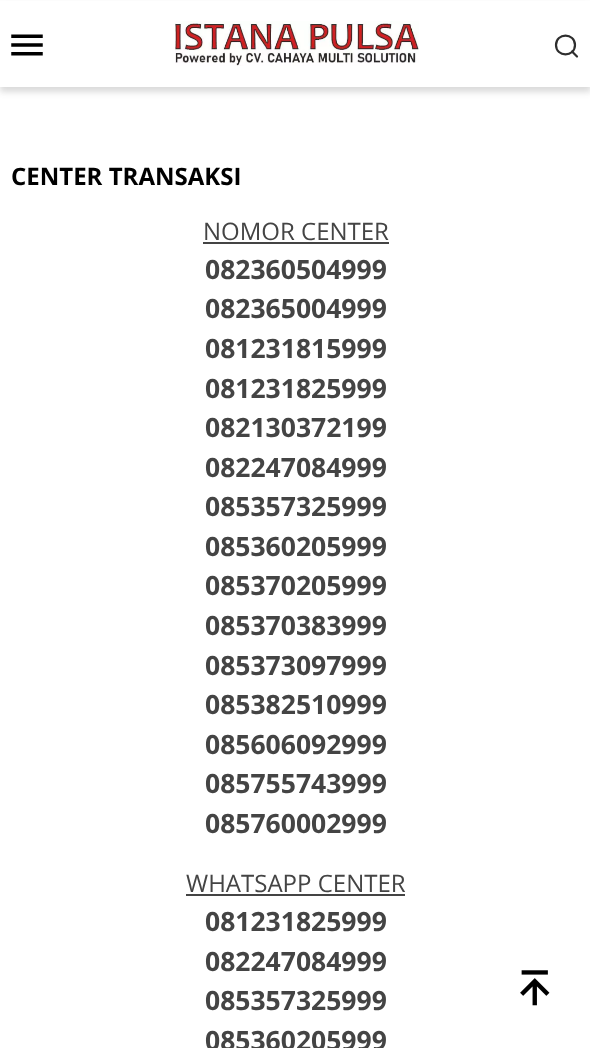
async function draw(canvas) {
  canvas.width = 590
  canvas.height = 1048
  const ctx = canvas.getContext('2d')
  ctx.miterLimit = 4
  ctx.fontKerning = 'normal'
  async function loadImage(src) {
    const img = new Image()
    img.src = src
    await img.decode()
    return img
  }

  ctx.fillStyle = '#fff'
  ctx.fillRect(0, 0, 590, 1048)
  ctx.fillStyle = '#3434342e'
  ctx.filter = 'blur(3px)'
  ctx.beginPath()
  ctx.rect(0, 5, 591, 87)
  ctx.fill()
  ctx.filter = 'none'
  ctx.fillStyle = '#fff'
  ctx.fillRect(0, 1, 590, 86)
  ctx.drawImage(await loadImage('image0.png'), 11, 34, 32, 22)
  ctx.drawImage(await loadImage('image1.png'), 175, 21, 244, 45)
  ctx.beginPath()
  ctx.moveTo(577, 56.5)
  ctx.lineTo(572, 51.5)
  ctx.moveTo(575, 45)
  ctx.bezierCurveTo(575, 57.5, 556, 57.5, 556, 45)
  ctx.bezierCurveTo(556, 32.5, 575, 32.5, 575, 45)
  ctx.closePath()
  ctx.strokeStyle = '#2e2e2e'
  ctx.lineWidth = 2.2
  ctx.lineCap = 'round'
  ctx.stroke()
  ctx.font = 'bold 24px Open Sans'
  ctx.fillStyle = '#000'
  ctx.fillText('CENTER TRANSAKSI', 11, 185)
  ctx.font = '24px Open Sans'
  ctx.fillStyle = '#444'
  ctx.fillText('NOMOR CENTER', 203, 240)
  ctx.fillRect(203, 242, 186, 2)
  ctx.font = 'bold 26.5px Open Sans'
  ctx.fillText('082360504999', 205, 279)
  ctx.fillText('082365004999', 205, 318)
  ctx.fillText('081231815999', 205, 358)
  ctx.fillText('081231825999', 205, 398)
  ctx.fillText('082130372199', 205, 437)
  ctx.fillText('082247084999', 205, 477)
  ctx.fillText('085357325999', 205, 516)
  ctx.fillText('085360205999', 205, 556)
  ctx.fillText('085370205999', 205, 595)
  ctx.fillText('085370383999', 205, 635)
  ctx.fillText('085373097999', 205, 675)
  ctx.fillText('085382510999', 205, 714)
  ctx.fillText('085606092999', 205, 754)
  ctx.fillText('085755743999', 205, 793)
  ctx.fillText('085760002999', 205, 833)
  ctx.font = '24px Open Sans'
  ctx.fillText('WHATSAPP CENTER', 186, 892)
  ctx.fillRect(186, 894, 219, 2)
  ctx.font = 'bold 26.5px Open Sans'
  ctx.fillText('081231825999', 205, 931)
  ctx.fillText('082247084999', 205, 971)
  ctx.fillText('085357325999', 205, 1010)
  ctx.fillText('085360205999', 205, 1050)
  ctx.drawImage(await loadImage('image2.png'), 520, 970, 30, 36)
}

draw(document.querySelector('canvas'))
